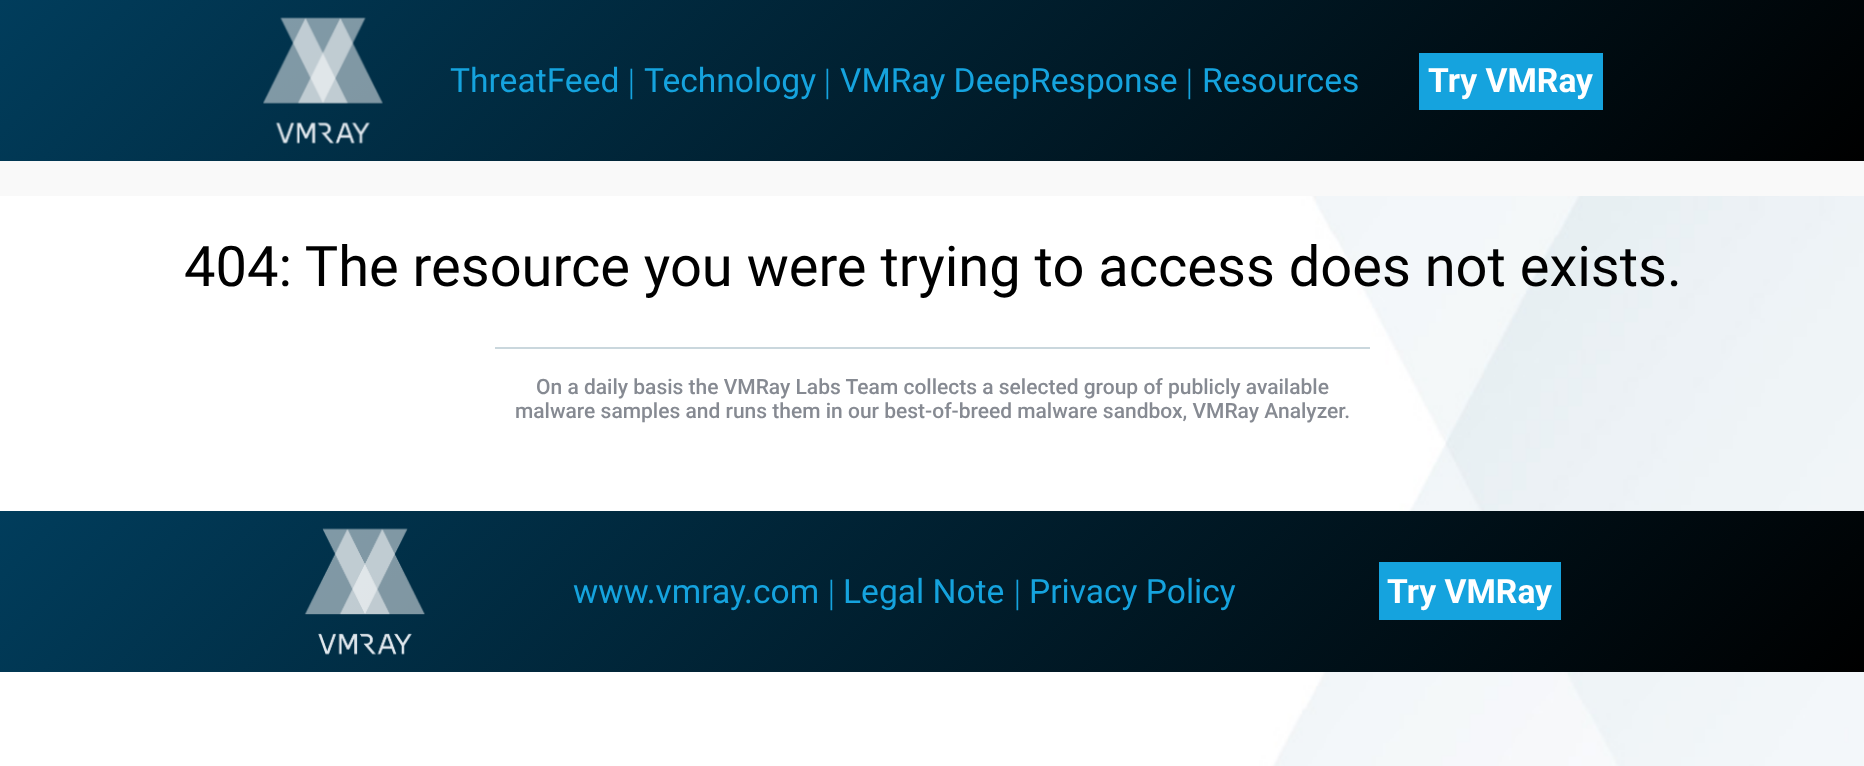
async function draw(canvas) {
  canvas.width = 1864
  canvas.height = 766
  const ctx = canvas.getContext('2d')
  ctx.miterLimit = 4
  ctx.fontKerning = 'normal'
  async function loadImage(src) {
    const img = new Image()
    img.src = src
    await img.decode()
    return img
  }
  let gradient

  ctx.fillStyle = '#fff'
  ctx.fillRect(0, 0, 1864, 766)
  ctx.drawImage(await loadImage('image0.png'), 1208, 196, 656, 570)
  gradient = ctx.createLinearGradient(426, -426, 1439, 587)
  gradient.addColorStop(0, '#013d5c')
  gradient.addColorStop(1, '#000')
  ctx.fillStyle = gradient
  ctx.fillRect(0, 0, 1864, 161)
  ctx.drawImage(await loadImage('image1.png'), 263, 17, 120, 127)
  ctx.font = '33.6px Roboto'
  ctx.fillStyle = '#15a3de'
  ctx.fillText('ThreatFeed', 450, 92)
  ctx.font = '33.6px Liberation Serif'
  ctx.fillText('|', 628, 92)
  ctx.font = '33.6px Roboto'
  ctx.fillText('Technology', 644, 92)
  ctx.font = '33.6px Liberation Serif'
  ctx.fillText('|', 824, 92)
  ctx.font = '33.6px Roboto'
  ctx.fillText('VMRay DeepResponse', 840, 92)
  ctx.font = '33.6px Liberation Serif'
  ctx.fillText('|', 1186, 92)
  ctx.font = '33.6px Roboto'
  ctx.fillText('Resources', 1202, 92)
  ctx.fillRect(1419, 53, 184, 57)
  ctx.font = 'bold 33.6px Roboto'
  ctx.fillStyle = '#fff'
  ctx.fillText('Try VMRay', 1428, 92)
  ctx.fillStyle = '#f9f9f9'
  ctx.fillRect(0, 161, 1864, 35)
  ctx.font = '56px Roboto'
  ctx.fillStyle = '#000'
  ctx.fillText('404: The resource you were trying to access does not exists.', 184, 286)
  ctx.fillStyle = '#cad7dd'
  ctx.fillRect(495, 347, 875, 2)
  ctx.font = '500 21px Roboto'
  ctx.fillStyle = '#868a92'
  ctx.fillText('On a daily basis the VMRay Labs Team collects a selected group of publicly available', 536, 394)
  ctx.fillText('malware samples and runs them in our best-of-breed malware sandbox, VMRay Analyzer.', 515, 418)
  gradient = ctx.createLinearGradient(426, 85, 1439, 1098)
  gradient.addColorStop(0, '#013d5c')
  gradient.addColorStop(1, '#000')
  ctx.fillStyle = gradient
  ctx.fillRect(0, 511, 1864, 161)
  ctx.drawImage(await loadImage('image2.png'), 304, 528, 121, 127)
  ctx.font = '33.6px Roboto'
  ctx.fillStyle = '#15a3de'
  ctx.fillText('www.vmray.com', 573, 603)
  ctx.font = '33.6px Liberation Serif'
  ctx.fillText('|', 828, 603)
  ctx.font = '33.6px Roboto'
  ctx.fillText('Legal Note', 843, 603)
  ctx.font = '33.6px Liberation Serif'
  ctx.fillText('|', 1014, 603)
  ctx.font = '33.6px Roboto'
  ctx.fillText('Privacy Policy', 1029, 603)
  ctx.fillRect(1379, 562, 182, 58)
  ctx.font = 'bold 33.6px Roboto'
  ctx.fillStyle = '#fff'
  ctx.fillText('Try VMRay', 1387, 603)
}

draw(document.querySelector('canvas'))
